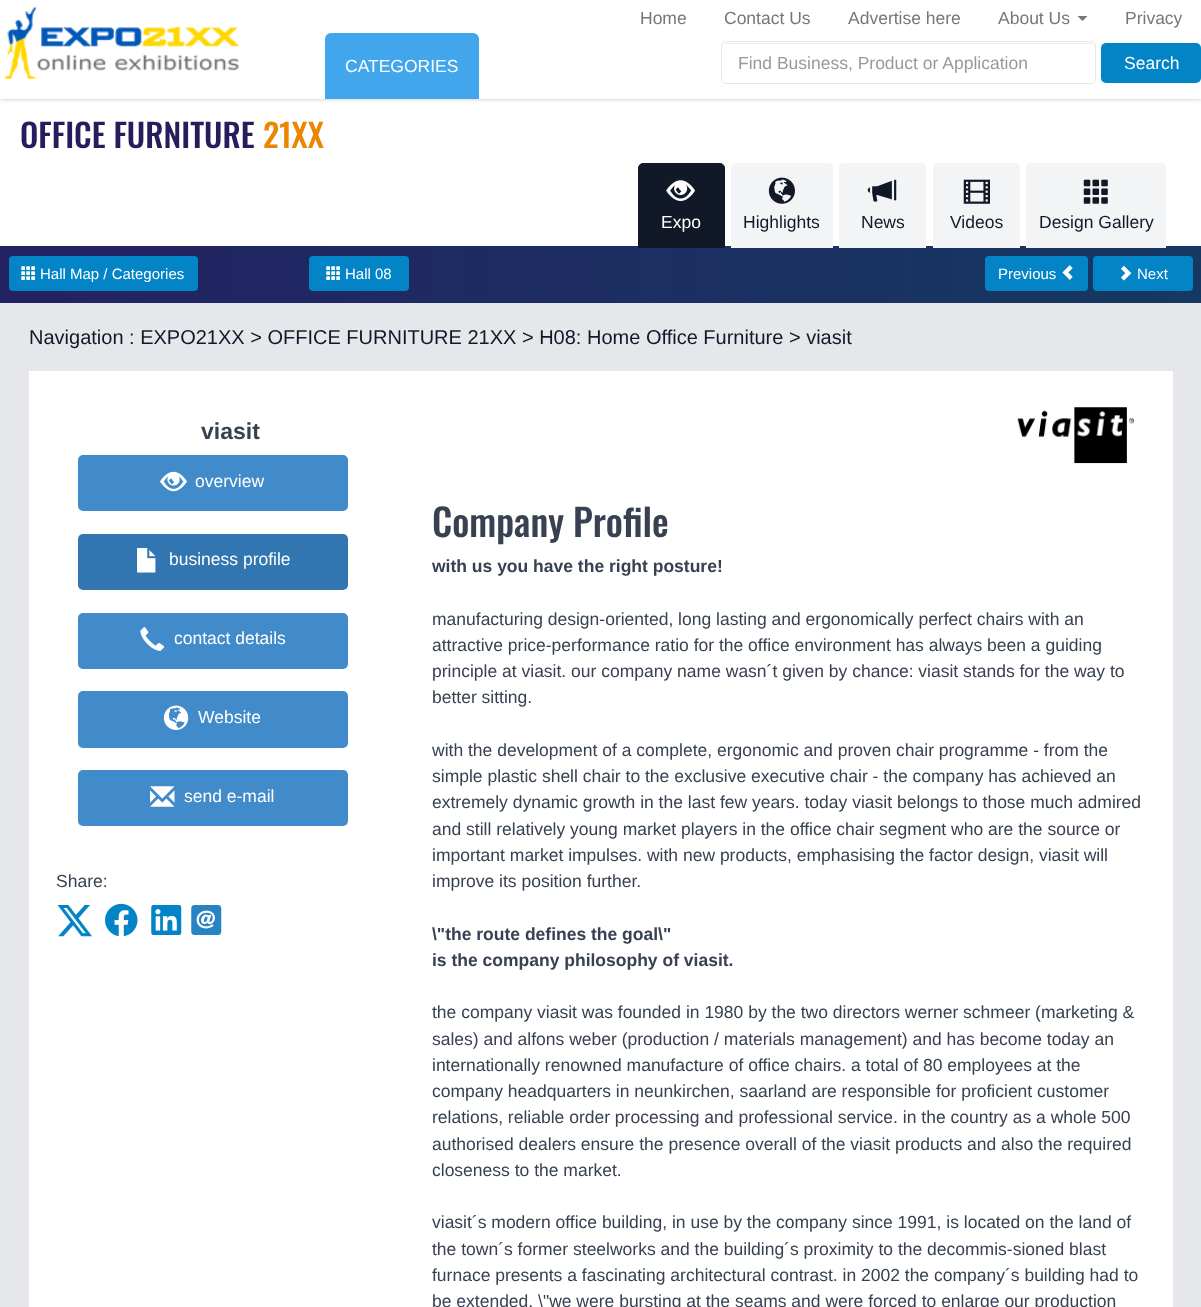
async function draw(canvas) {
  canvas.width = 1201
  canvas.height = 1307
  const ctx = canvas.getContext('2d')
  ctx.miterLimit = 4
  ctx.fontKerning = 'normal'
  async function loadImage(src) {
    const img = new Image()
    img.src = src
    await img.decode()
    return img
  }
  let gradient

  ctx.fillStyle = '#e5e7eb'
  ctx.fillRect(0, 0, 1201, 1307)
  ctx.fillStyle = '#fff'
  ctx.fillRect(0, 99, 1201, 147)
  ctx.fillStyle = '#0000000f'
  ctx.filter = 'blur(1px)'
  ctx.beginPath()
  ctx.rect(0, 1, 1201, 99)
  ctx.fill()
  ctx.filter = 'none'
  ctx.fillStyle = '#0000001a'
  ctx.filter = 'blur(2px)'
  ctx.beginPath()
  ctx.rect(0, 1, 1201, 99)
  ctx.fill()
  ctx.filter = 'none'
  ctx.fillStyle = '#fff'
  ctx.fillRect(0, 0, 1201, 99)
  ctx.font = '17.5px Liberation Sans'
  ctx.fillStyle = '#777'
  ctx.fillText('Home', 640, 24)
  ctx.fillText('Contact Us', 724, 24)
  ctx.fillText('Advertise here', 848, 24)
  ctx.fillText('About Us', 998, 24)
  ctx.beginPath()
  ctx.moveTo(1077.5, 16)
  ctx.lineTo(1087.5, 16)
  ctx.lineTo(1082.5, 21)
  ctx.closePath()
  ctx.fill()
  ctx.fillText('Privacy', 1125, 24)
  ctx.drawImage(await loadImage('image0.png'), 4, 7, 235, 72)
  ctx.fillStyle = '#41a6ec'
  ctx.beginPath()
  ctx.roundRect(325, 33, 154, 66, [6, 6, 0, 0])
  ctx.fill()
  ctx.fillStyle = '#fff'
  ctx.fillText('CATEGORIES', 345, 72)
  ctx.fillStyle = '#ececec'
  ctx.beginPath()
  ctx.moveTo(726, 44)
  ctx.lineTo(1091, 44)
  ctx.bezierCurveTo(1093, 44, 1095, 45, 1095, 48)
  ctx.lineTo(1095, 47)
  ctx.bezierCurveTo(1095, 45, 1093, 43, 1091, 43)
  ctx.lineTo(727, 43)
  ctx.bezierCurveTo(726, 43, 725, 44, 724, 44)
  ctx.closePath()
  ctx.fill()
  ctx.beginPath()
  ctx.roundRect(721.5, 41.5, 374, 42, 4.5)
  ctx.strokeStyle = '#e5e7eb'
  ctx.stroke()
  ctx.fillStyle = '#999'
  ctx.fillText('Find Business, Product or Application', 738, 69)
  ctx.fillStyle = '#0284c7'
  ctx.beginPath()
  ctx.roundRect(1101, 43, 100, 40, 5)
  ctx.fill()
  ctx.fillStyle = '#fff'
  ctx.fillText('Search', 1124, 69)
  ctx.font = '500 32.5px Oswald'
  ctx.fillStyle = '#271d5c'
  ctx.fillText('OFFICE FURNITURE', 20, 148)
  ctx.fillStyle = '#ec8500'
  ctx.fillText('21XX', 263, 148)
  gradient = ctx.createLinearGradient(0, 274, 1201, 274)
  gradient.addColorStop(0, '#232263')
  gradient.addColorStop(1, '#163861')
  ctx.fillStyle = gradient
  ctx.fillRect(0, 246, 1201, 57)
  ctx.fillStyle = '#111827'
  ctx.beginPath()
  ctx.roundRect(638.5, 163.5, 86, 84, [4.5, 4.5, 0, 0])
  ctx.fill()
  ctx.strokeStyle = '#111827'
  ctx.stroke()
  ctx.drawImage(await loadImage('image1.png'), 666, 180, 29, 21)
  ctx.font = '17.5px Liberation Sans'
  ctx.fillStyle = '#fff'
  ctx.fillText('Expo', 661, 228)
  ctx.fillStyle = '#f3f4f6'
  ctx.beginPath()
  ctx.roundRect(731, 163, 102, 85, [5, 5, 0, 0])
  ctx.fill()
  ctx.drawImage(await loadImage('image2.png'), 768, 177, 27, 27)
  ctx.fillStyle = '#111827'
  ctx.fillText('Highlights', 743, 228)
  ctx.fillStyle = '#f3f4f6'
  ctx.beginPath()
  ctx.roundRect(839, 163, 87, 85, [5, 5, 0, 0])
  ctx.fill()
  ctx.drawImage(await loadImage('image3.png'), 867, 179, 30, 23)
  ctx.fillStyle = '#111827'
  ctx.fillText('News', 861, 228)
  ctx.fillStyle = '#f3f4f6'
  ctx.beginPath()
  ctx.roundRect(933, 163, 87, 85, [5, 5, 0, 0])
  ctx.fill()
  ctx.drawImage(await loadImage('image4.png'), 963, 179, 27, 25)
  ctx.fillStyle = '#111827'
  ctx.fillText('Videos', 950, 228)
  ctx.fillStyle = '#f3f4f6'
  ctx.beginPath()
  ctx.roundRect(1026, 163, 140, 85, [5, 5, 0, 0])
  ctx.fill()
  ctx.drawImage(await loadImage('image5.png'), 1083, 179, 25, 25)
  ctx.fillStyle = '#111827'
  ctx.fillText('Design Gallery', 1039, 228)
  ctx.fillStyle = '#0284c7'
  ctx.beginPath()
  ctx.roundRect(9, 256, 189, 35, 4)
  ctx.fill()
  ctx.drawImage(await loadImage('image6.png'), 21, 266, 14, 14)
  ctx.font = '15px Liberation Sans'
  ctx.fillStyle = '#fff'
  ctx.fillText('Hall Map / Categories', 40, 279)
  ctx.fillStyle = '#0284c7'
  ctx.beginPath()
  ctx.roundRect(309, 256, 100, 35, 4)
  ctx.fill()
  ctx.drawImage(await loadImage('image6.png'), 326, 266, 14, 14)
  ctx.fillStyle = '#fff'
  ctx.fillText('Hall 08', 345, 279)
  ctx.fillStyle = '#0284c7'
  ctx.beginPath()
  ctx.roundRect(985, 256, 103, 35, 4)
  ctx.fill()
  ctx.fillStyle = '#fff'
  ctx.fillText('Previous', 998, 279)
  ctx.drawImage(await loadImage('image7.png'), 1062, 265, 11, 15)
  ctx.fillStyle = '#0284c7'
  ctx.beginPath()
  ctx.roundRect(1093, 256, 100, 35, 4)
  ctx.fill()
  ctx.drawImage(await loadImage('image8.png'), 1121, 265, 11, 16)
  ctx.fillStyle = '#fff'
  ctx.fillText('Next', 1137, 279)
  ctx.font = '20px Liberation Sans'
  ctx.fillStyle = '#111827'
  ctx.fillText('Navigation : EXPO21XX > OFFICE FURNITURE 21XX > H08: Home Office Furniture > viasit', 29, 344)
  ctx.fillStyle = '#fff'
  ctx.fillRect(29, 371, 1144, 936)
  ctx.font = 'bold 23px Liberation Sans'
  ctx.fillStyle = '#374151'
  ctx.fillText('viasit', 201, 439)
  ctx.fillStyle = '#428bca'
  ctx.beginPath()
  ctx.roundRect(78, 455, 270, 56, 5)
  ctx.fill()
  ctx.drawImage(await loadImage('image9.png'), 160, 471, 27, 21)
  ctx.font = '17.5px Liberation Sans'
  ctx.fillStyle = '#fff'
  ctx.fillText('overview', 195, 487)
  ctx.fillStyle = '#3276b1'
  ctx.beginPath()
  ctx.roundRect(78, 534, 270, 56, 5)
  ctx.fill()
  ctx.drawImage(await loadImage('image10.png'), 137, 548, 19, 25)
  ctx.fillStyle = '#fff'
  ctx.fillText('business profile', 169, 565)
  ctx.fillStyle = '#428bca'
  ctx.beginPath()
  ctx.roundRect(78, 613, 270, 56, 5)
  ctx.fill()
  ctx.drawImage(await loadImage('image11.png'), 140, 627, 25, 24)
  ctx.fillStyle = '#fff'
  ctx.fillText('contact details', 174, 644)
  ctx.fillStyle = '#428bca'
  ctx.beginPath()
  ctx.roundRect(78, 691, 270, 57, 5)
  ctx.fill()
  ctx.drawImage(await loadImage('image12.png'), 163, 705, 26, 25)
  ctx.fillStyle = '#fff'
  ctx.fillText('Website', 198, 723)
  ctx.fillStyle = '#428bca'
  ctx.beginPath()
  ctx.roundRect(78, 770, 270, 56, 5)
  ctx.fill()
  ctx.drawImage(await loadImage('image13.png'), 150, 786, 25, 21)
  ctx.fillStyle = '#fff'
  ctx.fillText('send e-mail', 184, 802)
  ctx.fillStyle = '#374151'
  ctx.fillText('Share:', 56, 887)
  ctx.drawImage(await loadImage('image14.png'), 57, 905, 35, 32)
  ctx.drawImage(await loadImage('image15.png'), 105, 903, 33, 34)
  ctx.drawImage(await loadImage('image16.png'), 151, 905, 31, 30)
  ctx.drawImage(await loadImage('image17.png'), 191, 905, 31, 30)
  ctx.drawImage(await loadImage('image18.png'), 1017, 407, 117, 57)
  ctx.font = '500 37.5px Oswald'
  ctx.fillText('Company Profile', 432, 537)
  ctx.font = 'bold 17.5px Liberation Sans'
  ctx.fillText('with us you have the right posture!', 432, 572)
  ctx.font = '17.5px Liberation Sans'
  ctx.fillText('manufacturing design-oriented, long lasting and ergonomically perfect chairs with an', 432, 625)
  ctx.fillText('attractive price-performance ratio for the office environment has always been a guiding', 432, 651)
  ctx.fillText('principle at viasit. our company name wasn´t given by chance: viasit stands for the way to', 432, 677)
  ctx.fillText('better sitting.', 432, 703)
  ctx.fillText('with the development of a complete, ergonomic and proven chair programme - from the', 432, 756)
  ctx.fillText('simple plastic shell chair to the exclusive executive chair - the company has achieved an', 432, 782)
  ctx.fillText('extremely dynamic growth in the last few years. today viasit belongs to those much admired', 432, 808)
  ctx.fillText('and still relatively young market players in the office chair segment who are the source or', 432, 835)
  ctx.fillText('important market impulses. with new products, emphasising the factor design, viasit will', 432, 861)
  ctx.fillText('improve its position further.', 432, 887)
  ctx.font = 'bold 17.5px Liberation Sans'
  ctx.fillText('\\"the route defines the goal\\"', 432, 940)
  ctx.fillText('is the company philosophy of viasit.', 432, 966)
  ctx.font = '17.5px Liberation Sans'
  ctx.fillText('the company viasit was founded in 1980 by the two directors werner schmeer (marketing &', 432, 1018)
  ctx.fillText('sales) and alfons weber (production / materials management) and has become today an', 432, 1045)
  ctx.fillText('internationally renowned manufacture of office chairs. a total of 80 employees at the', 432, 1071)
  ctx.fillText('company headquarters in neunkirchen, saarland are responsible for proficient customer', 432, 1097)
  ctx.fillText('relations, reliable order processing and professional service. in the country as a whole 500', 432, 1123)
  ctx.fillText('authorised dealers ensure the presence overall of the viasit products and also the required', 432, 1150)
  ctx.fillText('closeness to the market.', 432, 1176)
  ctx.fillText('viasit´s modern office building, in use by the company since 1991, is located on the land of', 432, 1228)
  ctx.fillText('the town´s former steelworks and the building´s proximity to the decommis-sioned blast', 432, 1255)
  ctx.fillText('furnace presents a fascinating architectural contrast. in 2002 the company´s building had to', 432, 1281)
  ctx.fillText('be extended. \\"we were bursting at the seams and were forced to enlarge our production', 432, 1307)
}

draw(document.querySelector('canvas'))
